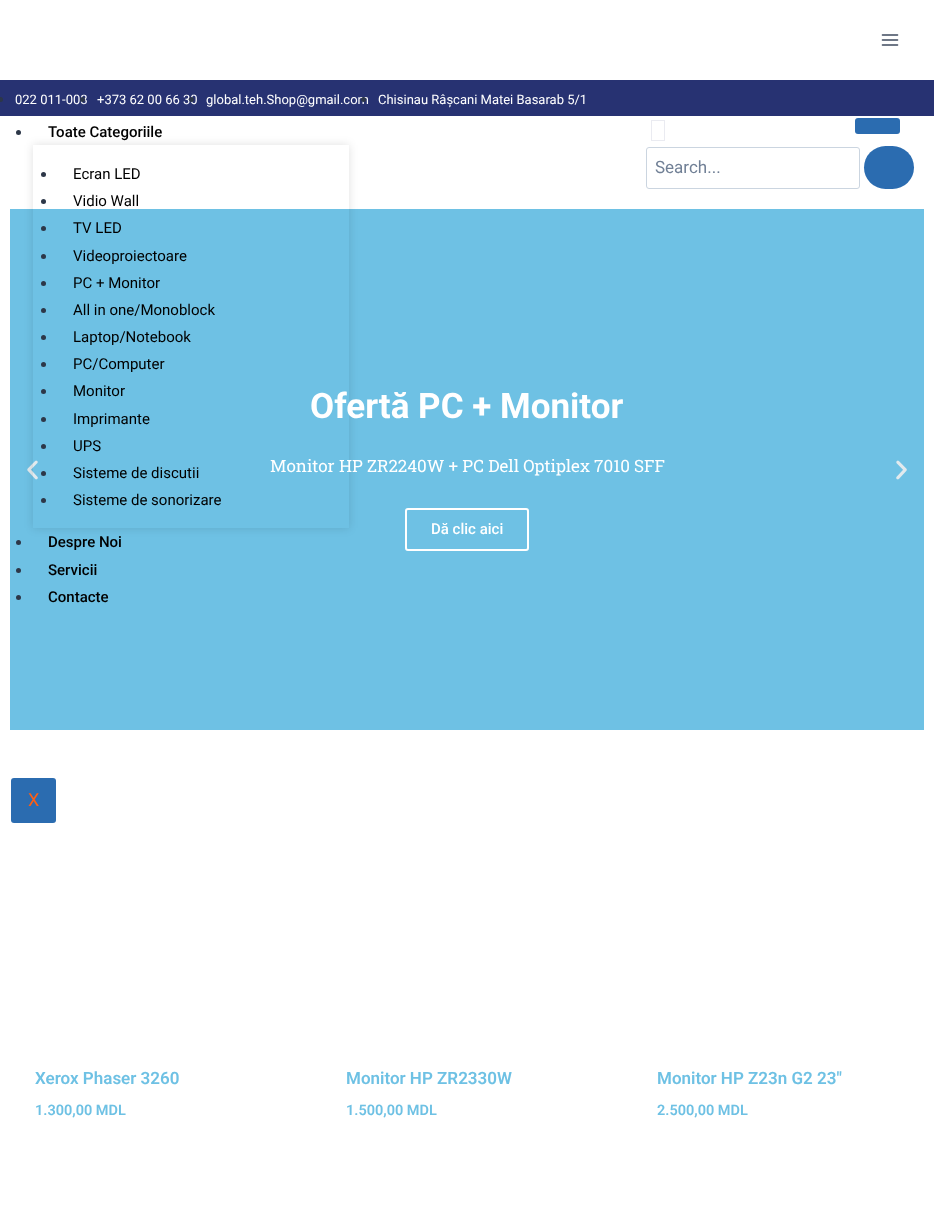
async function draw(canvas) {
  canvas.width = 934
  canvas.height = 1221
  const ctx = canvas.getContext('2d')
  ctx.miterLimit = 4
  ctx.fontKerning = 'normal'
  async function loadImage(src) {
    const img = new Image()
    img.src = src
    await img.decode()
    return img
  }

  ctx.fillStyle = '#fff'
  ctx.fillRect(0, 0, 934, 1221)
  ctx.drawImage(await loadImage('image0.png'), 881, 34, 18, 12)
  ctx.fillStyle = '#273272'
  ctx.fillRect(0, 80, 934, 36)
  ctx.fillStyle = '#2d3748'
  ctx.beginPath()
  ctx.arc(0.5, 99.5, 2.5, 0, 2 * Math.PI)
  ctx.fill()
  ctx.font = '13px Roboto'
  ctx.fillStyle = '#fff'
  ctx.fillText('022 011-008', 15, 104)
  ctx.fillStyle = '#2d3748'
  ctx.beginPath()
  ctx.arc(82.5, 99.5, 2.5, 0, 2 * Math.PI)
  ctx.fill()
  ctx.fillStyle = '#fff'
  ctx.fillText('+373 62 00 66 30', 97, 104)
  ctx.fillStyle = '#2d3748'
  ctx.beginPath()
  ctx.arc(191.5, 99.5, 2.5, 0, 2 * Math.PI)
  ctx.fill()
  ctx.fillStyle = '#fff'
  ctx.fillText('global.teh.Shop@gmail.com', 206, 104)
  ctx.fillStyle = '#2d3748'
  ctx.beginPath()
  ctx.arc(363.5, 99.5, 2.5, 0, 2 * Math.PI)
  ctx.fill()
  ctx.fillStyle = '#fff'
  ctx.fillText('Chisinau Râșcani Matei Basarab 5/1', 378, 104)
  ctx.fillStyle = '#6ec1e4'
  ctx.fillRect(10, 209, 914, 521)
  ctx.drawImage(await loadImage('image1.png'), 27, 460, 11, 20)
  ctx.save()
  ctx.beginPath()
  ctx.moveTo(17, 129)
  ctx.lineTo(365, 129)
  ctx.lineTo(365, 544)
  ctx.lineTo(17, 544)
  ctx.closePath()
  ctx.moveTo(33, 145)
  ctx.lineTo(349, 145)
  ctx.lineTo(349, 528)
  ctx.lineTo(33, 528)
  ctx.closePath()
  ctx.clip('evenodd')
  ctx.fillStyle = '#0000001f'
  ctx.filter = 'blur(5px)'
  ctx.beginPath()
  ctx.rect(33, 145, 316, 383)
  ctx.fill()
  ctx.filter = 'none'
  ctx.restore()
  ctx.fillStyle = '#2d3748'
  ctx.beginPath()
  ctx.arc(18.5, 132.5, 2.5, 0, 2 * Math.PI)
  ctx.fill()
  ctx.font = '500 15px Roboto'
  ctx.fillStyle = '#000'
  ctx.fillText('Toate Categoriile', 48, 137)
  ctx.fillStyle = '#2d3748'
  ctx.beginPath()
  ctx.arc(43.5, 174.5, 2.5, 0, 2 * Math.PI)
  ctx.fill()
  ctx.font = '15px Roboto'
  ctx.fillStyle = '#000'
  ctx.fillText('Ecran LED', 73, 179)
  ctx.fillStyle = '#2d3748'
  ctx.beginPath()
  ctx.arc(43.5, 201.5, 2.5, 0, 2 * Math.PI)
  ctx.fill()
  ctx.fillStyle = '#000'
  ctx.fillText('Vidio Wall', 73, 206)
  ctx.fillStyle = '#2d3748'
  ctx.beginPath()
  ctx.arc(43.5, 228.5, 2.5, 0, 2 * Math.PI)
  ctx.fill()
  ctx.fillStyle = '#000'
  ctx.fillText('TV LED', 73, 233)
  ctx.fillStyle = '#2d3748'
  ctx.beginPath()
  ctx.arc(43.5, 256.5, 2.5, 0, 2 * Math.PI)
  ctx.fill()
  ctx.fillStyle = '#000'
  ctx.fillText('Videoproiectoare', 73, 261)
  ctx.fillStyle = '#2d3748'
  ctx.beginPath()
  ctx.arc(43.5, 283.5, 2.5, 0, 2 * Math.PI)
  ctx.fill()
  ctx.fillStyle = '#000'
  ctx.fillText('PC + Monitor', 73, 288)
  ctx.fillStyle = '#2d3748'
  ctx.beginPath()
  ctx.arc(43.5, 310.5, 2.5, 0, 2 * Math.PI)
  ctx.fill()
  ctx.fillStyle = '#000'
  ctx.fillText('All in one/Monoblock', 73, 315)
  ctx.fillStyle = '#2d3748'
  ctx.beginPath()
  ctx.arc(43.5, 337.5, 2.5, 0, 2 * Math.PI)
  ctx.fill()
  ctx.fillStyle = '#000'
  ctx.fillText('Laptop/Notebook', 73, 342)
  ctx.fillStyle = '#2d3748'
  ctx.beginPath()
  ctx.arc(43.5, 364.5, 2.5, 0, 2 * Math.PI)
  ctx.fill()
  ctx.fillStyle = '#000'
  ctx.fillText('PC/Computer', 73, 369)
  ctx.fillStyle = '#2d3748'
  ctx.beginPath()
  ctx.arc(43.5, 391.5, 2.5, 0, 2 * Math.PI)
  ctx.fill()
  ctx.fillStyle = '#000'
  ctx.fillText('Monitor', 73, 396)
  ctx.fillStyle = '#2d3748'
  ctx.beginPath()
  ctx.arc(43.5, 419.5, 2.5, 0, 2 * Math.PI)
  ctx.fill()
  ctx.fillStyle = '#000'
  ctx.fillText('Imprimante', 73, 424)
  ctx.fillStyle = '#2d3748'
  ctx.beginPath()
  ctx.arc(43.5, 446.5, 2.5, 0, 2 * Math.PI)
  ctx.fill()
  ctx.fillStyle = '#000'
  ctx.fillText('UPS', 73, 451)
  ctx.fillStyle = '#2d3748'
  ctx.beginPath()
  ctx.arc(43.5, 473.5, 2.5, 0, 2 * Math.PI)
  ctx.fill()
  ctx.fillStyle = '#000'
  ctx.fillText('Sisteme de discutii', 73, 478)
  ctx.fillStyle = '#2d3748'
  ctx.beginPath()
  ctx.arc(43.5, 500.5, 2.5, 0, 2 * Math.PI)
  ctx.fill()
  ctx.fillStyle = '#000'
  ctx.fillText('Sisteme de sonorizare', 73, 505)
  ctx.fillStyle = '#2d3748'
  ctx.beginPath()
  ctx.arc(18.5, 542.5, 2.5, 0, 2 * Math.PI)
  ctx.fill()
  ctx.font = '500 15px Roboto'
  ctx.fillStyle = '#000'
  ctx.fillText('Despre Noi', 48, 547)
  ctx.fillStyle = '#2d3748'
  ctx.beginPath()
  ctx.arc(18.5, 570.5, 2.5, 0, 2 * Math.PI)
  ctx.fill()
  ctx.fillStyle = '#000'
  ctx.fillText('Servicii', 48, 575)
  ctx.fillStyle = '#2d3748'
  ctx.beginPath()
  ctx.arc(18.5, 597.5, 2.5, 0, 2 * Math.PI)
  ctx.fill()
  ctx.fillStyle = '#000'
  ctx.fillText('Contacte', 48, 602)
  ctx.fillStyle = '#2b6cb0'
  ctx.beginPath()
  ctx.roundRect(11, 778, 45, 45, 3)
  ctx.fill()
  ctx.font = '18px Roboto'
  ctx.fillStyle = '#ff5e13'
  ctx.fillText('X', 28, 806)
  ctx.fillStyle = '#2b6cb0'
  ctx.beginPath()
  ctx.roundRect(855, 118, 45, 16, 3)
  ctx.fill()
  ctx.strokeStyle = '#eaebf1'
  ctx.strokeRect(651.5, 120.5, 13, 20)
  ctx.beginPath()
  ctx.roundRect(646.5, 147.5, 213, 41, 2.5)
  ctx.strokeStyle = '#cbd5e0'
  ctx.stroke()
  ctx.font = '17px Roboto'
  ctx.fillStyle = '#718096'
  ctx.fillText('Search...', 655, 173)
  ctx.fillStyle = '#2b6cb0'
  ctx.beginPath()
  ctx.roundRect(864, 146, 50, 43, 21.5)
  ctx.fill()
  ctx.font = 'bold 35px Roboto'
  ctx.fillStyle = '#fff'
  ctx.fillText('Ofertă PC + Monitor', 310, 418)
  ctx.font = '17px Roboto Slab'
  ctx.fillText('Monitor HP ZR2240W + PC Dell Optiplex 7010 SFF', 270, 472)
  ctx.beginPath()
  ctx.roundRect(406, 509, 122, 41, 2)
  ctx.strokeStyle = '#fff'
  ctx.lineWidth = 2
  ctx.stroke()
  ctx.font = '500 15px Roboto'
  ctx.fillText('Dă clic aici', 431, 534)
  ctx.drawImage(await loadImage('image2.png'), 896, 460, 11, 20)
  ctx.font = '600 17px Roboto'
  ctx.fillStyle = '#6ec1e4'
  ctx.fillText('Xerox Phaser 3260', 35, 1084)
  ctx.font = '600 14.5px Roboto'
  ctx.fillText('1.300,00 MDL', 35, 1115)
  ctx.font = '600 17px Roboto'
  ctx.fillText('Monitor HP ZR2330W', 346, 1084)
  ctx.font = '600 14.5px Roboto'
  ctx.fillText('1.500,00 MDL', 346, 1115)
  ctx.font = '600 17px Roboto'
  ctx.fillText('Monitor HP Z23n G2 23″', 657, 1084)
  ctx.font = '600 14.5px Roboto'
  ctx.fillText('2.500,00 MDL', 657, 1115)
}

draw(document.querySelector('canvas'))
